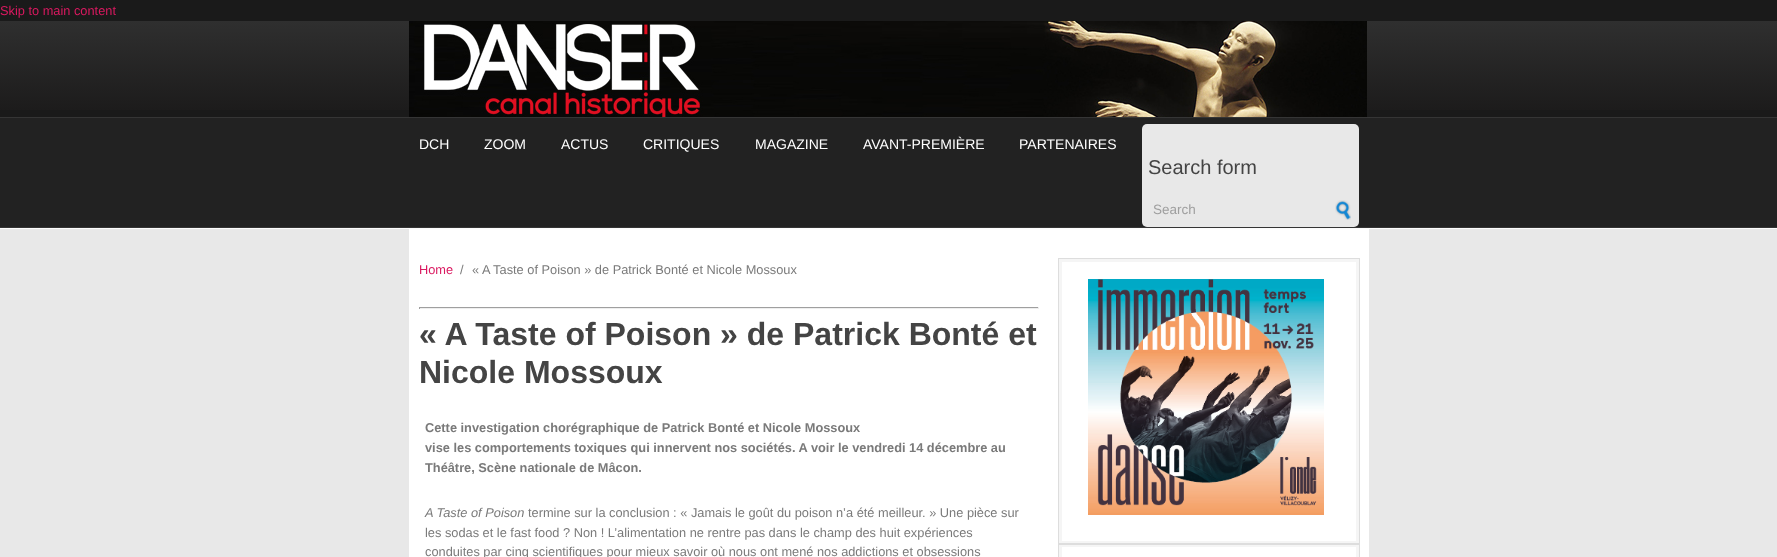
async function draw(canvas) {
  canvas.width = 1777
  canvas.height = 557
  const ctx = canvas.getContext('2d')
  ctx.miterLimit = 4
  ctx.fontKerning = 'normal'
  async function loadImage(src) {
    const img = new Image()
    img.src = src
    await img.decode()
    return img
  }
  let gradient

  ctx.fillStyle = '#1a1a1a'
  ctx.fillRect(0, 0, 1777, 557)
  ctx.font = '12.8px Liberation Sans'
  ctx.fillStyle = '#da1960'
  ctx.fillText('Skip to main content', 0, 15)
  gradient = ctx.createLinearGradient(889, 21, 889, 117)
  gradient.addColorStop(0, '#2f2f2f')
  gradient.addColorStop(1, '#1b1a1a')
  ctx.fillStyle = gradient
  ctx.fillRect(0, 21, 1777, 89)
  ctx.drawImage(await loadImage('image0.png'), 409, 21, 958, 96)
  ctx.fillStyle = '#222'
  ctx.fillRect(0, 118, 1777, 109)
  ctx.fillStyle = '#353535'
  ctx.fillRect(0, 117, 1777, 1)
  ctx.fillRect(0, 227, 1777, 1)
  ctx.font = '14px Liberation Sans'
  ctx.fillStyle = '#fff'
  ctx.fillText('DCH', 419, 149)
  ctx.fillText('ZOOM', 484, 149)
  ctx.fillText('ACTUS', 561, 149)
  ctx.fillText('CRITIQUES', 643, 149)
  ctx.fillText('MAGAZINE', 755, 149)
  ctx.fillText('AVANT-PREMIÈRE', 863, 149)
  ctx.fillText('PARTENAIRES', 1019, 149)
  ctx.fillStyle = '#e8e8e8'
  ctx.beginPath()
  ctx.roundRect(1142, 124, 217, 103, 5)
  ctx.fill()
  ctx.font = '20px Liberation Sans'
  ctx.fillStyle = '#444'
  ctx.fillText('Search form', 1148, 174)
  ctx.font = '13.5px Liberation Sans'
  ctx.fillStyle = '#9f9f9f'
  ctx.fillText('Search', 1153, 214)
  ctx.drawImage(await loadImage('image1.png'), 1335, 200, 16, 20)
  ctx.fillStyle = '#fcfcfc'
  ctx.fillRect(0, 228, 1777, 1)
  ctx.fillStyle = '#e8e8e8'
  ctx.fillRect(0, 229, 1777, 328)
  ctx.fillStyle = '#fff'
  ctx.fillRect(409, 229, 960, 328)
  ctx.font = '12.8px Liberation Sans'
  ctx.fillStyle = '#da1960'
  ctx.fillText('Home', 419, 274)
  ctx.fillStyle = '#7a7a7a'
  ctx.fillText('/', 460, 274)
  ctx.fillText('« A Taste of Poison » de Patrick Bonté et Nicole Mossoux', 472, 274)
  ctx.fillStyle = '#9f9f9f'
  ctx.fillRect(419, 307, 620, 1)
  ctx.fillStyle = '#eee'
  ctx.fillRect(1038, 307, 1, 2)
  ctx.fillRect(419, 308, 620, 1)
  ctx.fillStyle = '#9f9f9f'
  ctx.fillRect(419, 307, 1, 2)
  ctx.font = 'bold 32px Liberation Sans'
  ctx.fillStyle = '#444'
  ctx.fillText('« A Taste of Poison » de Patrick Bonté et', 419, 345)
  ctx.fillText('Nicole Mossoux', 419, 383)
  ctx.font = 'bold 12.8px Liberation Sans'
  ctx.fillStyle = '#7a7a7a'
  ctx.fillText('Cette investigation chorégraphique de Patrick Bonté et Nicole Mossoux', 425, 432)
  ctx.fillText('vise les comportements toxiques qui innervent nos sociétés. A voir le vendredi 14 décembre au', 425, 452)
  ctx.fillText('Théâtre, Scène nationale de Mâcon.', 425, 472)
  ctx.font = 'italic 12.8px Liberation Sans'
  ctx.fillText('A Taste of Poison', 425, 517)
  ctx.font = '12.8px Liberation Sans'
  ctx.fillText('termine sur la conclusion : « Jamais le goût du poison n’a été meilleur. » Une pièce sur', 528, 517)
  ctx.fillText('les sodas et le fast food ? Non ! L’alimentation ne rentre pas dans le champ des huit expériences', 425, 537)
  ctx.fillText('conduites par cinq scientifiques pour mieux savoir où nous ont mené nos addictions et obsessions', 425, 556)
  ctx.strokeStyle = '#f5f5f5'
  ctx.lineWidth = 3
  ctx.strokeRect(1060.5, 260.5, 297, 282)
  ctx.strokeRect(1060.5, 545.5, 297, 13)
  ctx.strokeStyle = '#ddd'
  ctx.lineWidth = 1
  ctx.strokeRect(1058.5, 258.5, 301, 286)
  ctx.drawImage(await loadImage('image2.png'), 1088, 279, 236, 236)
  ctx.strokeRect(1058.5, 543.5, 301, 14)
}

draw(document.querySelector('canvas'))
